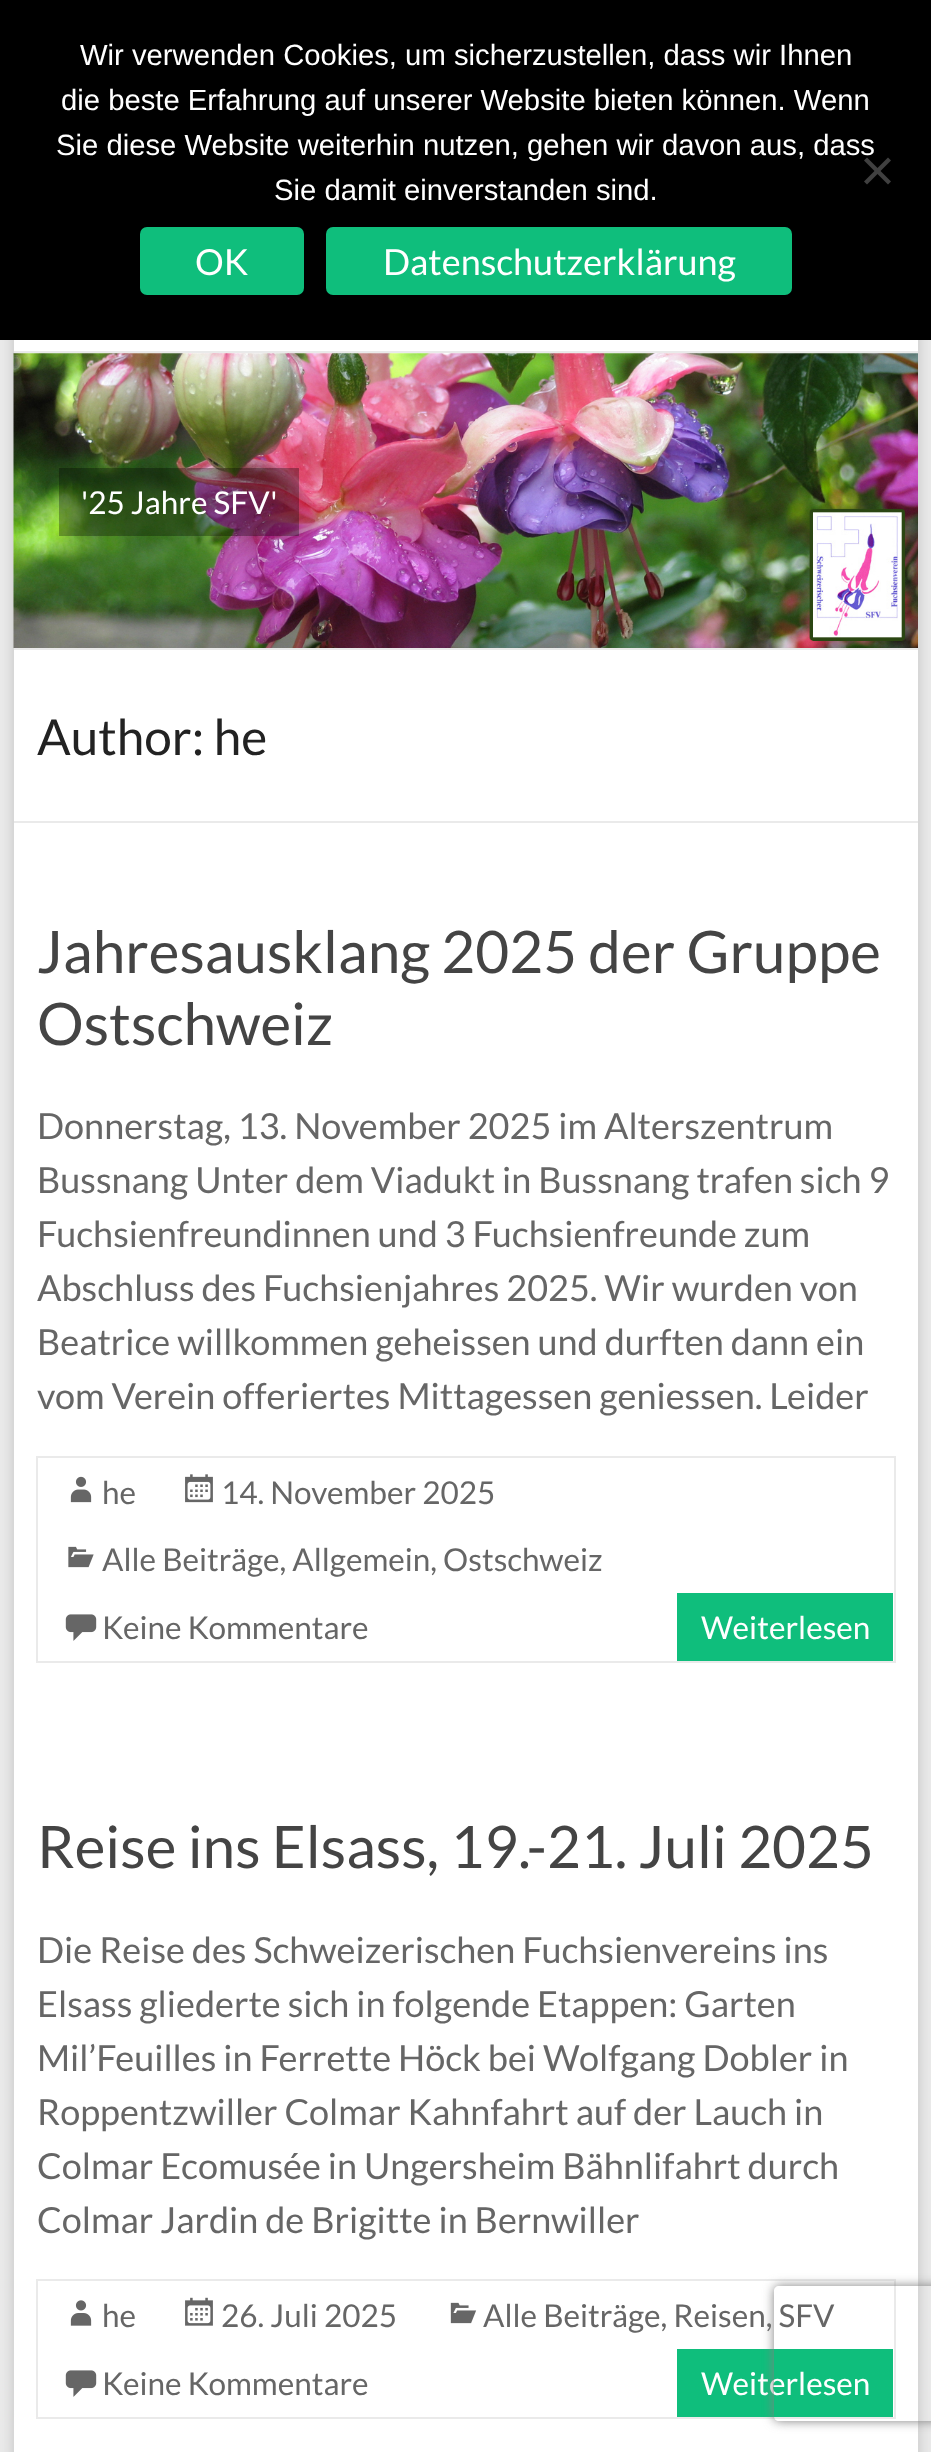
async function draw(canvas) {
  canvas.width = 931
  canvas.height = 2452
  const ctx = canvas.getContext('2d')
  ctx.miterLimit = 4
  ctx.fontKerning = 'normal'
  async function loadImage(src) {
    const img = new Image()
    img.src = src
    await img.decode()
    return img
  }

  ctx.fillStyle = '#eaeaea'
  ctx.fillRect(0, 0, 931, 2452)
  ctx.fillStyle = '#6464644d'
  ctx.filter = 'blur(7px)'
  ctx.beginPath()
  ctx.rect(14, 38, 904, 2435)
  ctx.fill()
  ctx.filter = 'none'
  ctx.fillStyle = '#000'
  ctx.fillRect(0, 0, 931, 340)
  ctx.font = '29.25px Liberation Sans'
  ctx.fillStyle = '#fff'
  ctx.fillText('Wir verwenden Cookies, um sicherzustellen, dass wir Ihnen', 80, 65)
  ctx.fillText('die beste Erfahrung auf unserer Website bieten können. Wenn', 61, 110)
  ctx.fillText('Sie diese Website weiterhin nutzen, gehen wir davon aus, dass', 56, 155)
  ctx.fillText('Sie damit einverstanden sind.', 274, 200)
  ctx.fillStyle = '#404040'
  ctx.beginPath()
  ctx.moveTo(888, 157.5)
  ctx.lineTo(891, 160.5)
  ctx.lineTo(867, 184.5)
  ctx.lineTo(864, 181.5)
  ctx.closePath()
  ctx.fill()
  ctx.beginPath()
  ctx.moveTo(864, 160.5)
  ctx.lineTo(867, 157.5)
  ctx.lineTo(891, 181.5)
  ctx.lineTo(888, 184.5)
  ctx.closePath()
  ctx.fill()
  ctx.fillStyle = '#0fbe7c'
  ctx.beginPath()
  ctx.roundRect(140, 227, 164, 68, 7)
  ctx.fill()
  ctx.font = '36px Lato'
  ctx.fillStyle = '#fff'
  ctx.fillText('OK', 195, 275)
  ctx.fillStyle = '#0fbe7c'
  ctx.beginPath()
  ctx.roundRect(326, 227, 466, 68, 7)
  ctx.fill()
  ctx.fillStyle = '#fff'
  ctx.fillText('Datenschutzerklärung', 383, 275)
  ctx.fillRect(14, 340, 904, 2112)
  ctx.fillStyle = '#eaeaea'
  ctx.fillRect(14, 351, 904, 2)
  ctx.fillRect(14, 648, 904, 2)
  ctx.drawImage(await loadImage('image0.png'), 13, 353, 905, 295)
  ctx.fillStyle = '#0000004d'
  ctx.fillRect(59, 468, 240, 68)
  ctx.font = '31.5px Lato'
  ctx.fillStyle = '#fff'
  ctx.fillText('\'25 Jahre SFV\'', 81, 514)
  ctx.fillStyle = '#eaeaea'
  ctx.fillRect(14, 821, 904, 2)
  ctx.font = '49.5px Lato'
  ctx.fillStyle = '#222'
  ctx.fillText('Author: he', 37, 755)
  ctx.font = '58.5px Lato'
  ctx.fillStyle = '#444'
  ctx.fillText('Jahresausklang 2025 der Gruppe', 37, 973)
  ctx.fillText('Ostschweiz', 37, 1045)
  ctx.font = '36px Lato'
  ctx.fillStyle = '#666'
  ctx.fillText('Donnerstag, 13. November 2025 im Alterszentrum', 37, 1139)
  ctx.fillText('Bussnang Unter dem Viadukt in Bussnang trafen sich 9', 37, 1193)
  ctx.fillText('Fuchsienfreundinnen und 3 Fuchsienfreunde zum', 37, 1247)
  ctx.fillText('Abschluss des Fuchsienjahres 2025. Wir wurden von', 37, 1301)
  ctx.fillText('Beatrice willkommen geheissen und durften dann ein', 37, 1355)
  ctx.fillText('vom Verein offeriertes Mittagessen geniessen. Leider', 37, 1409)
  ctx.strokeStyle = '#eaeaea'
  ctx.lineWidth = 2
  ctx.strokeRect(37, 1457, 858, 205)
  ctx.drawImage(await loadImage('image1.png'), 70, 1476, 22, 27)
  ctx.font = '31.5px Lato'
  ctx.fillText('he', 102, 1504)
  ctx.drawImage(await loadImage('image2.png'), 185, 1474, 28, 29)
  ctx.fillText('14. November 2025', 221, 1504)
  ctx.drawImage(await loadImage('image3.png'), 68, 1546, 26, 22)
  ctx.fillText('Alle Beiträge, Allgemein, Ostschweiz', 102, 1571)
  ctx.drawImage(await loadImage('image4.png'), 65, 1614, 32, 27)
  ctx.fillText('Keine Kommentare', 102, 1639)
  ctx.fillStyle = '#0fbe7c'
  ctx.fillRect(677, 1593, 216, 68)
  ctx.fillStyle = '#fff'
  ctx.fillText('Weiterlesen', 701, 1639)
  ctx.font = '58.5px Lato'
  ctx.fillStyle = '#444'
  ctx.fillText('Reise ins Elsass, 19.-21. Juli 2025', 37, 1868)
  ctx.font = '36px Lato'
  ctx.fillStyle = '#666'
  ctx.fillText('Die Reise des Schweizerischen Fuchsienvereins ins', 37, 1963)
  ctx.fillText('Elsass gliederte sich in folgende Etappen: Garten', 37, 2017)
  ctx.fillText('Mil’Feuilles in Ferrette Höck bei Wolfgang Dobler in', 37, 2071)
  ctx.fillText('Roppentzwiller Colmar Kahnfahrt auf der Lauch in', 37, 2125)
  ctx.fillText('Colmar Ecomusée in Ungersheim Bähnlifahrt durch', 37, 2179)
  ctx.fillText('Colmar Jardin de Brigitte in Bernwiller', 37, 2233)
  ctx.strokeRect(37, 2280, 858, 138)
  ctx.drawImage(await loadImage('image5.png'), 70, 2300, 22, 26)
  ctx.font = '31.5px Lato'
  ctx.fillText('he', 102, 2327)
  ctx.drawImage(await loadImage('image6.png'), 185, 2297, 28, 29)
  ctx.fillText('26. Juli 2025', 221, 2327)
  ctx.drawImage(await loadImage('image7.png'), 450, 2302, 27, 22)
  ctx.fillText('Alle Beiträge, Reisen, SFV', 483, 2327)
  ctx.drawImage(await loadImage('image4.png'), 65, 2370, 32, 27)
  ctx.fillText('Keine Kommentare', 102, 2395)
  ctx.fillStyle = '#0fbe7c'
  ctx.fillRect(677, 2349, 216, 68)
  ctx.fillStyle = '#fff'
  ctx.fillText('Weiterlesen', 701, 2395)
  ctx.save()
  ctx.beginPath()
  ctx.moveTo(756, 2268)
  ctx.lineTo(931, 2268)
  ctx.lineTo(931, 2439)
  ctx.lineTo(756, 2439)
  ctx.closePath()
  ctx.moveTo(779, 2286)
  ctx.lineTo(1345, 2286)
  ctx.bezierCurveTo(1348, 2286, 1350, 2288, 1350, 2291)
  ctx.lineTo(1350, 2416)
  ctx.bezierCurveTo(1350, 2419, 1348, 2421, 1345, 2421)
  ctx.lineTo(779, 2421)
  ctx.bezierCurveTo(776, 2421, 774, 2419, 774, 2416)
  ctx.lineTo(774, 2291)
  ctx.bezierCurveTo(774, 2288, 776, 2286, 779, 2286)
  ctx.closePath()
  ctx.clip('evenodd')
  ctx.fillStyle = '#808080'
  ctx.filter = 'blur(5.5px)'
  ctx.beginPath()
  ctx.roundRect(774, 2286, 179, 135, 5)
  ctx.fill()
  ctx.filter = 'none'
  ctx.restore()
}

draw(document.querySelector('canvas'))
